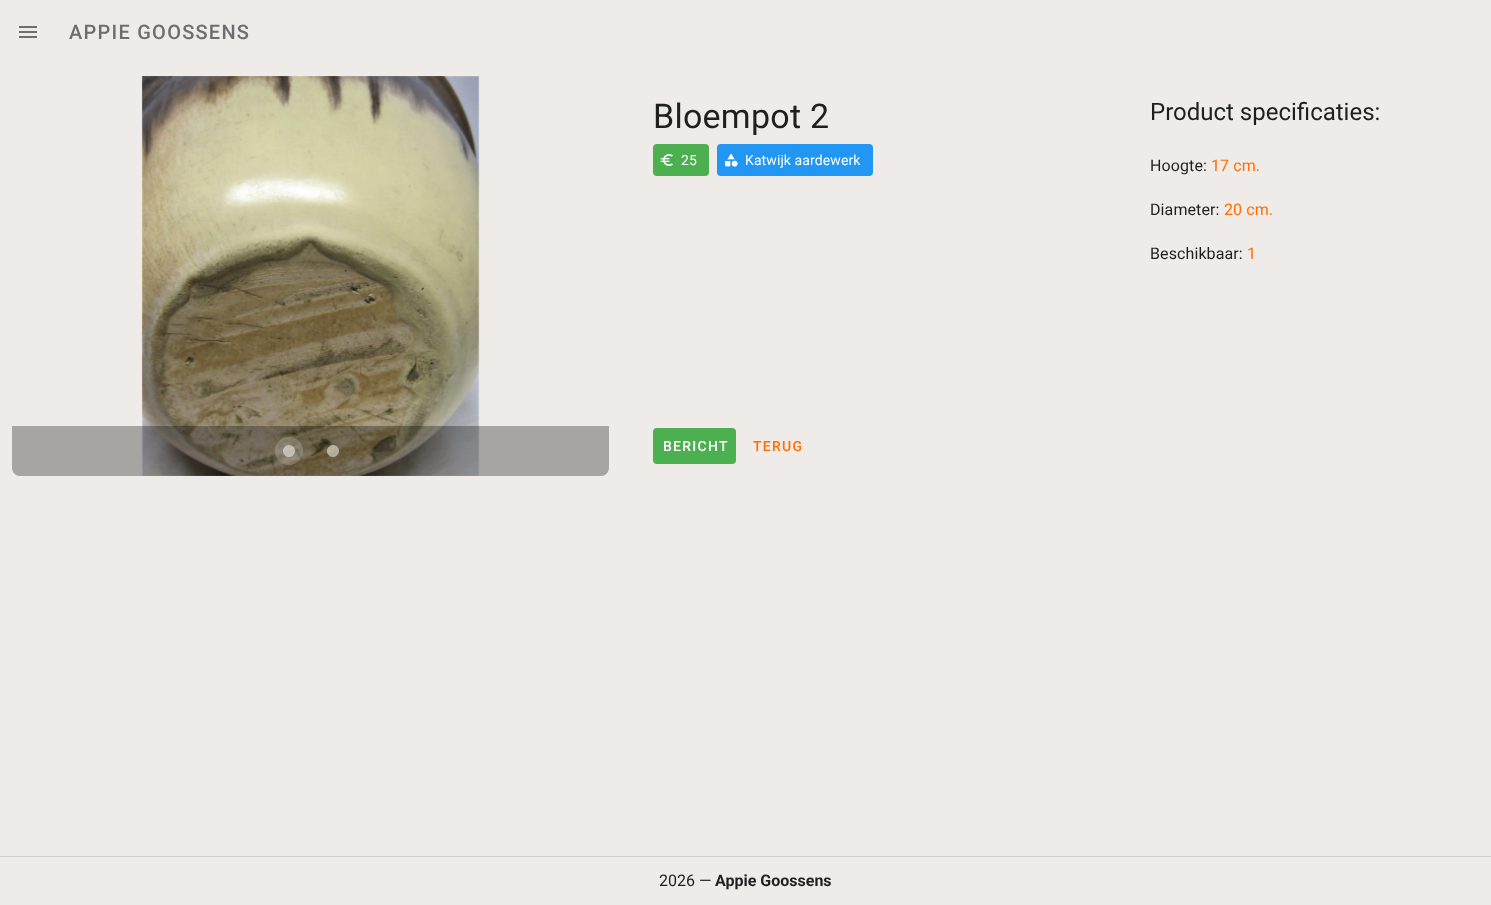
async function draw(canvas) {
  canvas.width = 1491
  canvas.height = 905
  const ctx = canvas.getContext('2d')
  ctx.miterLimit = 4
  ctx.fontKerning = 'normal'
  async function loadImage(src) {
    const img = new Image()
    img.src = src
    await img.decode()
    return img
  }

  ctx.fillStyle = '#efebe9'
  ctx.fillRect(0, 0, 1491, 905)
  ctx.drawImage(await loadImage('image0.png'), 19, 26, 18, 12)
  ctx.letterSpacing = '1.25px'
  ctx.font = '500 20px Roboto'
  ctx.fillStyle = '#6e6c6c'
  ctx.fillText('APPIE GOOSSENS', 69, 39)
  ctx.drawImage(await loadImage('image1.png'), 141, 76, 339, 400)
  ctx.fillStyle = '#0000004d'
  ctx.beginPath()
  ctx.roundRect(12, 426, 597, 50, [0, 0, 8, 8])
  ctx.fill()
  ctx.fillStyle = '#ffffff2e'
  ctx.beginPath()
  ctx.arc(289, 451, 14, 0, 2 * Math.PI)
  ctx.fill()
  ctx.drawImage(await loadImage('image2.png'), 283, 445, 12, 12)
  ctx.drawImage(await loadImage('image3.png'), 327, 445, 12, 12)
  ctx.letterSpacing = '0.25px'
  ctx.font = '34px Roboto'
  ctx.fillStyle = '#1f1f1e'
  ctx.fillText('Bloempot 2', 653, 128)
  ctx.fillStyle = '#4caf50'
  ctx.beginPath()
  ctx.roundRect(653, 144, 56, 32, 4)
  ctx.fill()
  ctx.drawImage(await loadImage('image4.png'), 660, 154, 13, 12)
  ctx.letterSpacing = '0.1px'
  ctx.font = '14px Roboto'
  ctx.fillStyle = '#fff'
  ctx.fillText('25', 681, 165)
  ctx.fillStyle = '#2196f3'
  ctx.beginPath()
  ctx.roundRect(717, 144, 156, 32, 4)
  ctx.fill()
  ctx.drawImage(await loadImage('image5.png'), 725, 153, 13, 14)
  ctx.fillStyle = '#fff'
  ctx.fillText('Katwijk aardewerk', 745, 165)
  ctx.fillStyle = '#4caf50'
  ctx.beginPath()
  ctx.roundRect(653, 428, 83, 36, 4)
  ctx.fill()
  ctx.letterSpacing = '1.25px'
  ctx.font = '500 14px Roboto'
  ctx.fillStyle = '#fff'
  ctx.fillText('BERICHT', 663, 451)
  ctx.fillStyle = '#ff6f00'
  ctx.fillText('TERUG', 753, 451)
  ctx.letterSpacing = '0px'
  ctx.font = '24px Roboto'
  ctx.fillStyle = '#1f1f1e'
  ctx.fillText('Product specificaties:', 1150, 120)
  ctx.letterSpacing = '0.1px'
  ctx.font = '16px Roboto'
  ctx.fillText('Hoogte:', 1150, 171)
  ctx.fillStyle = '#ff6f00'
  ctx.fillText('17 cm.', 1211, 171)
  ctx.fillStyle = '#1f1f1e'
  ctx.fillText('Diameter:', 1150, 215)
  ctx.fillStyle = '#ff6f00'
  ctx.fillText('20 cm.', 1224, 215)
  ctx.fillStyle = '#1f1f1e'
  ctx.fillText('Beschikbaar:', 1150, 259)
  ctx.fillStyle = '#ff6f00'
  ctx.fillText('1', 1247, 259)
  ctx.fillStyle = '#d2cfcd'
  ctx.fillRect(0, 856, 1491, 1)
  ctx.letterSpacing = '0px'
  ctx.fillStyle = '#1f1f1e'
  ctx.fillText('2026 —', 659, 886)
  ctx.font = 'bold 16px Roboto'
  ctx.fillText('Appie Goossens', 715, 886)
}

draw(document.querySelector('canvas'))
